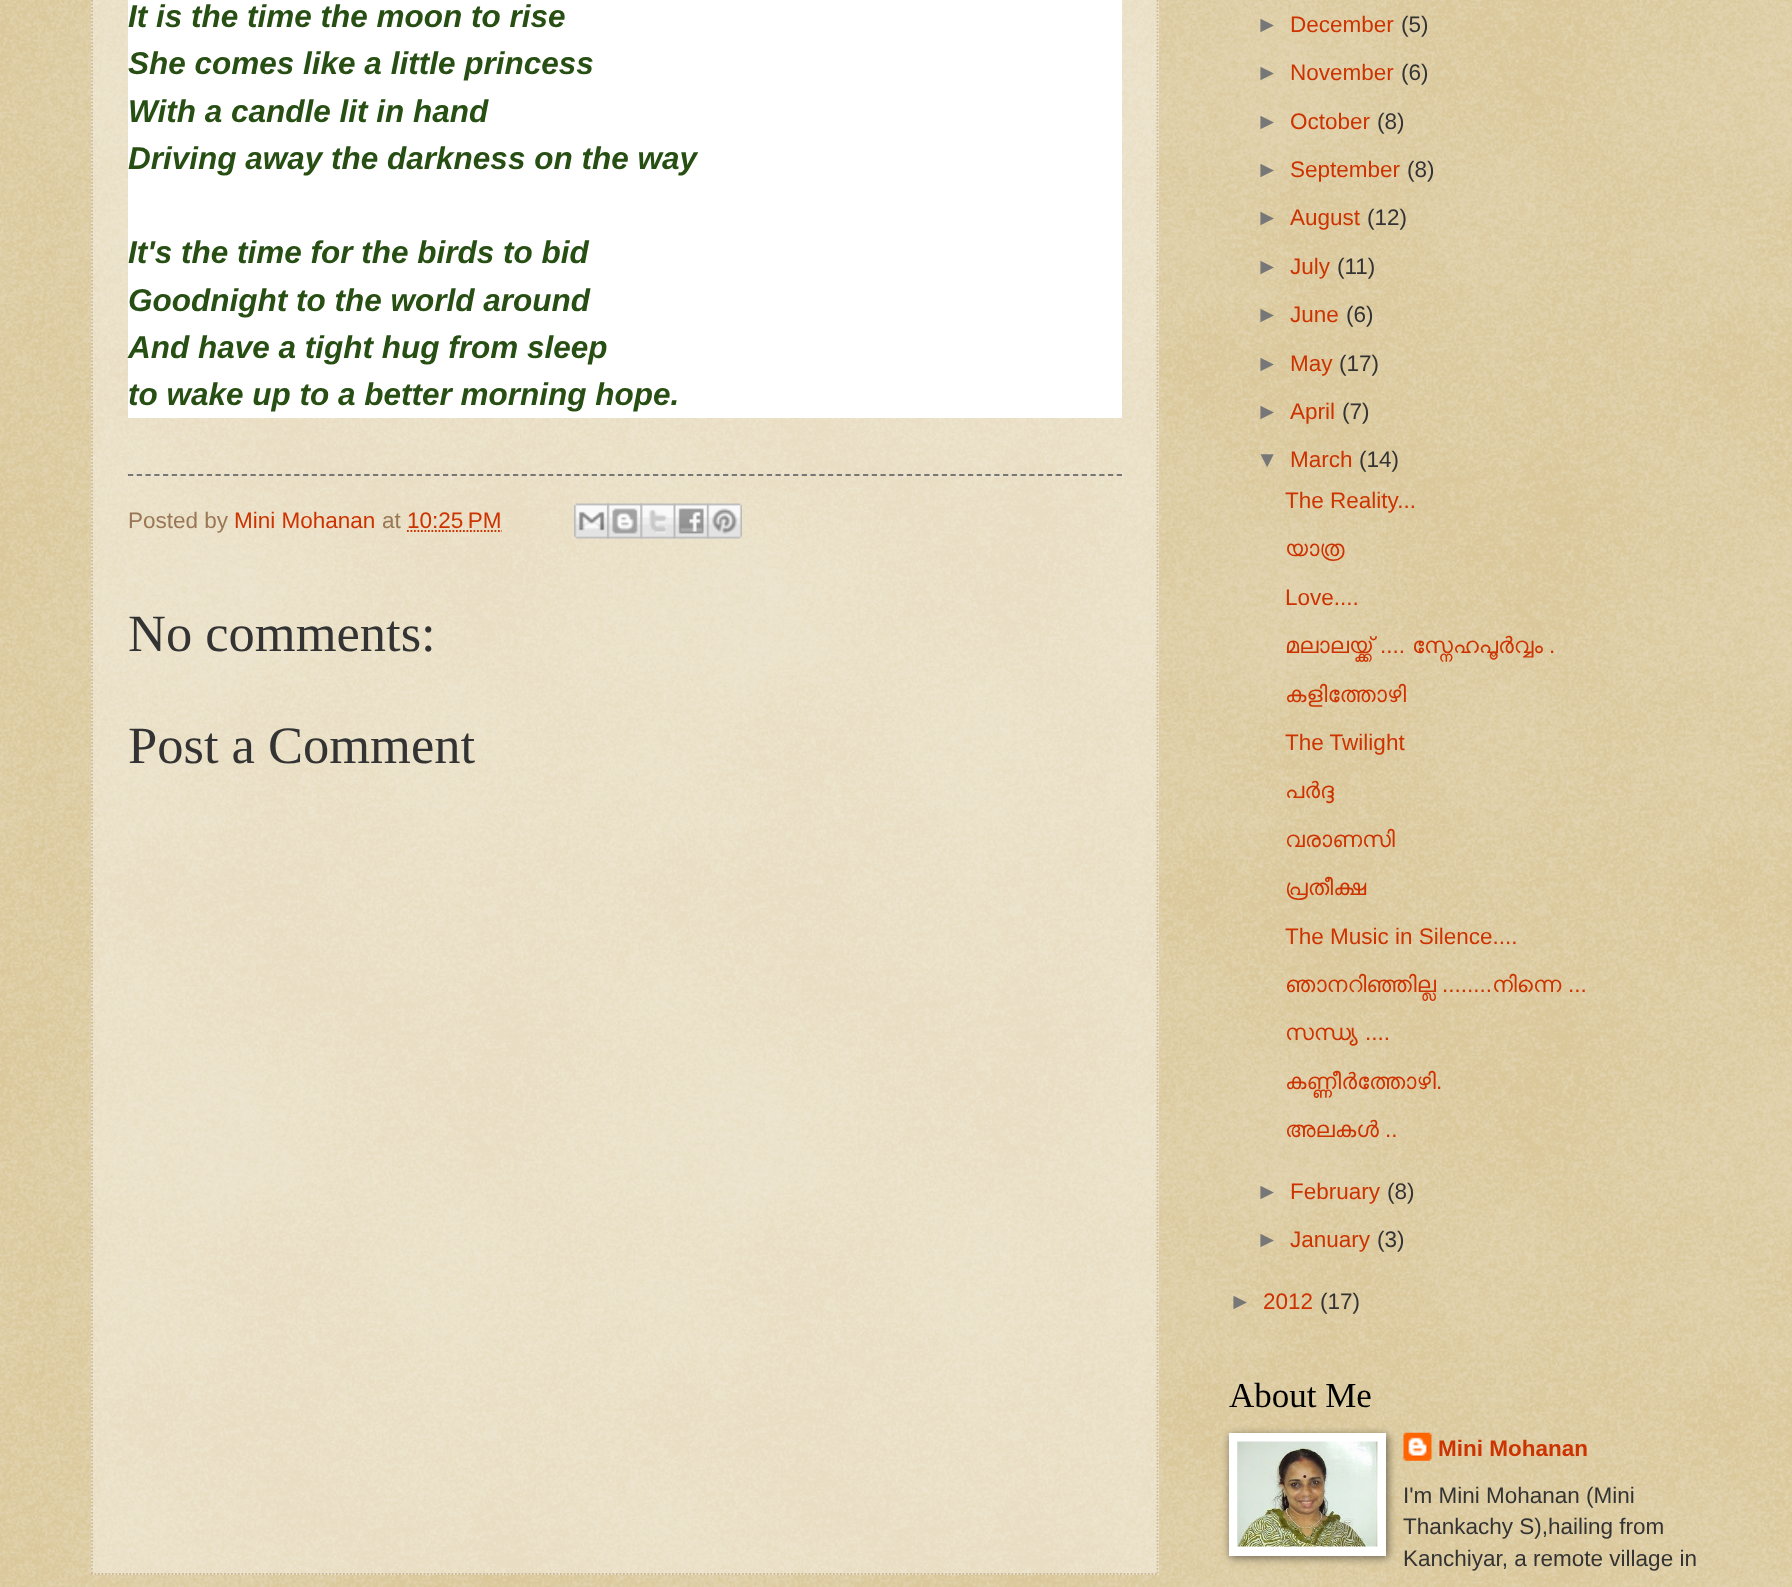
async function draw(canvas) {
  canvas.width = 1792
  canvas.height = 1587
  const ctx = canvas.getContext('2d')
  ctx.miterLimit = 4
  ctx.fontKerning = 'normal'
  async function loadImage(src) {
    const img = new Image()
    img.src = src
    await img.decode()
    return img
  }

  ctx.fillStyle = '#c0a154'
  ctx.fillRect(0, 0, 1792, 1587)
  ctx.drawImage(await loadImage('image0.png'), 0, 0, 1792, 1587)
  ctx.fillStyle = '#ffffff66'
  ctx.fillRect(91, 0, 1068, 1575)
  ctx.beginPath()
  ctx.moveTo(1157.5, -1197)
  ctx.lineTo(1157.5, 1575)
  ctx.strokeStyle = '#cb9'
  ctx.lineWidth = 1.8
  ctx.setLineDash([1.75, 1.75])
  ctx.stroke()
  ctx.beginPath()
  ctx.moveTo(91, 1574)
  ctx.lineTo(1158.5, 1574)
  ctx.stroke()
  ctx.beginPath()
  ctx.moveTo(92, -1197)
  ctx.lineTo(92, 1575)
  ctx.stroke()
  ctx.fillStyle = '#fff'
  ctx.fillRect(128, 0, 994, 418)
  ctx.font = 'italic bold 31.5px Liberation Sans'
  ctx.fillStyle = '#274e13'
  ctx.fillText('It is the time the moon to rise', 128, 27)
  ctx.fillText('She comes like a little princess', 128, 74)
  ctx.fillText('With a candle lit in hand', 128, 122)
  ctx.fillText('Driving away the darkness on the way', 128, 169)
  ctx.fillText('It\'s the time for the birds to bid', 128, 263)
  ctx.fillText('Goodnight to the world around', 128, 311)
  ctx.fillText('And have a tight hug from sleep', 128, 358)
  ctx.fillText('to wake up to a better morning hope.', 128, 405)
  ctx.beginPath()
  ctx.moveTo(128, 475)
  ctx.lineTo(1122, 475)
  ctx.strokeStyle = '#777'
  ctx.setLineDash([5.25, 3.5])
  ctx.stroke()
  ctx.font = '22.5px Liberation Sans'
  ctx.fillStyle = '#975'
  ctx.fillText('Posted by', 128, 528)
  ctx.fillStyle = '#c30'
  ctx.fillText('Mini Mohanan', 234, 528)
  ctx.fillStyle = '#975'
  ctx.fillText('at', 382, 528)
  ctx.fillStyle = '#c30'
  ctx.fillText('10:25 PM', 407, 528)
  ctx.beginPath()
  ctx.moveTo(407, 531)
  ctx.lineTo(502, 531)
  ctx.strokeStyle = '#c30'
  ctx.setLineDash([1.75, 1.75])
  ctx.stroke()
  ctx.drawImage(await loadImage('image1.png'), 574, 503, 35, 36)
  ctx.drawImage(await loadImage('image2.png'), 607, 503, 36, 36)
  ctx.drawImage(await loadImage('image3.png'), 640, 503, 36, 36)
  ctx.drawImage(await loadImage('image4.png'), 673, 503, 36, 36)
  ctx.drawImage(await loadImage('image5.png'), 707, 503, 35, 36)
  ctx.font = '52.5px Liberation Serif'
  ctx.fillStyle = '#333'
  ctx.fillText('No comments:', 128, 651)
  ctx.fillText('Post a Comment', 128, 763)
  ctx.font = '22.5px Liberation Sans'
  ctx.fillStyle = '#777'
  ctx.fillText('►', 1256, 32)
  ctx.fillStyle = '#c30'
  ctx.fillText('December', 1290, 32)
  ctx.fillStyle = '#333'
  ctx.fillText('(5)', 1401, 32)
  ctx.fillStyle = '#777'
  ctx.fillText('►', 1256, 80)
  ctx.fillStyle = '#c30'
  ctx.fillText('November', 1290, 80)
  ctx.fillStyle = '#333'
  ctx.fillText('(6)', 1401, 80)
  ctx.fillStyle = '#777'
  ctx.fillText('►', 1256, 129)
  ctx.fillStyle = '#c30'
  ctx.fillText('October', 1290, 129)
  ctx.fillStyle = '#333'
  ctx.fillText('(8)', 1377, 129)
  ctx.fillStyle = '#777'
  ctx.fillText('►', 1256, 177)
  ctx.fillStyle = '#c30'
  ctx.fillText('September', 1290, 177)
  ctx.fillStyle = '#333'
  ctx.fillText('(8)', 1407, 177)
  ctx.fillStyle = '#777'
  ctx.fillText('►', 1256, 225)
  ctx.fillStyle = '#c30'
  ctx.fillText('August', 1290, 225)
  ctx.fillStyle = '#333'
  ctx.fillText('(12)', 1367, 225)
  ctx.fillStyle = '#777'
  ctx.fillText('►', 1256, 274)
  ctx.fillStyle = '#c30'
  ctx.fillText('July', 1290, 274)
  ctx.fillStyle = '#333'
  ctx.fillText('(11)', 1337, 274)
  ctx.fillStyle = '#777'
  ctx.fillText('►', 1256, 322)
  ctx.fillStyle = '#c30'
  ctx.fillText('June', 1290, 322)
  ctx.fillStyle = '#333'
  ctx.fillText('(6)', 1346, 322)
  ctx.fillStyle = '#777'
  ctx.fillText('►', 1256, 371)
  ctx.fillStyle = '#c30'
  ctx.fillText('May', 1290, 371)
  ctx.fillStyle = '#333'
  ctx.fillText('(17)', 1339, 371)
  ctx.fillStyle = '#777'
  ctx.fillText('►', 1256, 419)
  ctx.fillStyle = '#c30'
  ctx.fillText('April', 1290, 419)
  ctx.fillStyle = '#333'
  ctx.fillText('(7)', 1342, 419)
  ctx.fillStyle = '#777'
  ctx.fillText('▼', 1256, 467)
  ctx.fillStyle = '#c30'
  ctx.fillText('March', 1290, 467)
  ctx.fillStyle = '#333'
  ctx.fillText('(14)', 1359, 467)
  ctx.fillStyle = '#c30'
  ctx.fillText('The Reality...', 1285, 508)
  ctx.font = '22.5px FreeSans'
  ctx.fillText('യാത്ര', 1285, 556)
  ctx.font = '22.5px Liberation Sans'
  ctx.fillText('Love....', 1285, 605)
  ctx.font = '22.5px FreeSans'
  ctx.fillText('മലാലയ്ക്ക്', 1285, 653)
  ctx.font = '22.5px Liberation Sans'
  ctx.fillText('....', 1380, 653)
  ctx.font = '22.5px FreeSans'
  ctx.fillText('സ്നേഹപൂർവ്വം', 1412, 653)
  ctx.font = '22.5px Liberation Sans'
  ctx.fillText('.', 1549, 653)
  ctx.font = '22.5px FreeSans'
  ctx.fillText('കളിത്തോഴി', 1285, 702)
  ctx.font = '22.5px Liberation Sans'
  ctx.fillText('The Twilight', 1285, 750)
  ctx.font = '22.5px FreeSans'
  ctx.fillText('പർദ്ദ', 1285, 798)
  ctx.fillText('വരാണസി', 1285, 847)
  ctx.fillText('പ്രതീക്ഷ', 1285, 895)
  ctx.font = '22.5px Liberation Sans'
  ctx.fillText('The Music in Silence....', 1285, 944)
  ctx.font = '22.5px FreeSans'
  ctx.fillText('ഞാനറിഞ്ഞില്ല', 1285, 992)
  ctx.font = '22.5px Liberation Sans'
  ctx.fillText('........', 1442, 992)
  ctx.font = '22.5px FreeSans'
  ctx.fillText('നിന്നെ', 1492, 992)
  ctx.font = '22.5px Liberation Sans'
  ctx.fillText('...', 1568, 992)
  ctx.font = '22.5px FreeSans'
  ctx.fillText('സന്ധ്യ', 1285, 1040)
  ctx.font = '22.5px Liberation Sans'
  ctx.fillText('....', 1365, 1040)
  ctx.font = '22.5px FreeSans'
  ctx.fillText('കണ്ണീർത്തോഴി', 1285, 1089)
  ctx.font = '22.5px Liberation Sans'
  ctx.fillText('.', 1436, 1089)
  ctx.font = '22.5px FreeSans'
  ctx.fillText('അലകൾ', 1285, 1137)
  ctx.font = '22.5px Liberation Sans'
  ctx.fillText('..', 1385, 1137)
  ctx.fillStyle = '#777'
  ctx.fillText('►', 1256, 1199)
  ctx.fillStyle = '#c30'
  ctx.fillText('February', 1290, 1199)
  ctx.fillStyle = '#333'
  ctx.fillText('(8)', 1387, 1199)
  ctx.fillStyle = '#777'
  ctx.fillText('►', 1256, 1247)
  ctx.fillStyle = '#c30'
  ctx.fillText('January', 1290, 1247)
  ctx.fillStyle = '#333'
  ctx.fillText('(3)', 1377, 1247)
  ctx.fillStyle = '#777'
  ctx.fillText('►', 1229, 1309)
  ctx.fillStyle = '#c30'
  ctx.fillText('2012', 1263, 1309)
  ctx.fillStyle = '#333'
  ctx.fillText('(17)', 1320, 1309)
  ctx.font = '35px Liberation Serif'
  ctx.fillStyle = '#000'
  ctx.fillText('About Me', 1229, 1407)
  ctx.fillStyle = '#00000080'
  ctx.filter = 'blur(4.5px)'
  ctx.beginPath()
  ctx.rect(1230, 1435, 158, 123)
  ctx.fill()
  ctx.filter = 'none'
  ctx.fillStyle = '#fff'
  ctx.fillRect(1229, 1433, 157, 123)
  ctx.drawImage(await loadImage('image6.png'), 1237, 1441, 141, 106)
  ctx.drawImage(await loadImage('image7.png'), 1403, 1432, 29, 29)
  ctx.font = 'bold 22.5px Liberation Sans'
  ctx.fillStyle = '#c30'
  ctx.fillText('Mini Mohanan', 1438, 1456)
  ctx.font = '22.5px Liberation Sans'
  ctx.fillStyle = '#333'
  ctx.fillText('I\'m Mini Mohanan (Mini', 1403, 1503)
  ctx.fillText('Thankachy S),hailing from', 1403, 1534)
  ctx.fillText('Kanchiyar, a remote village in', 1403, 1566)
}

draw(document.querySelector('canvas'))
